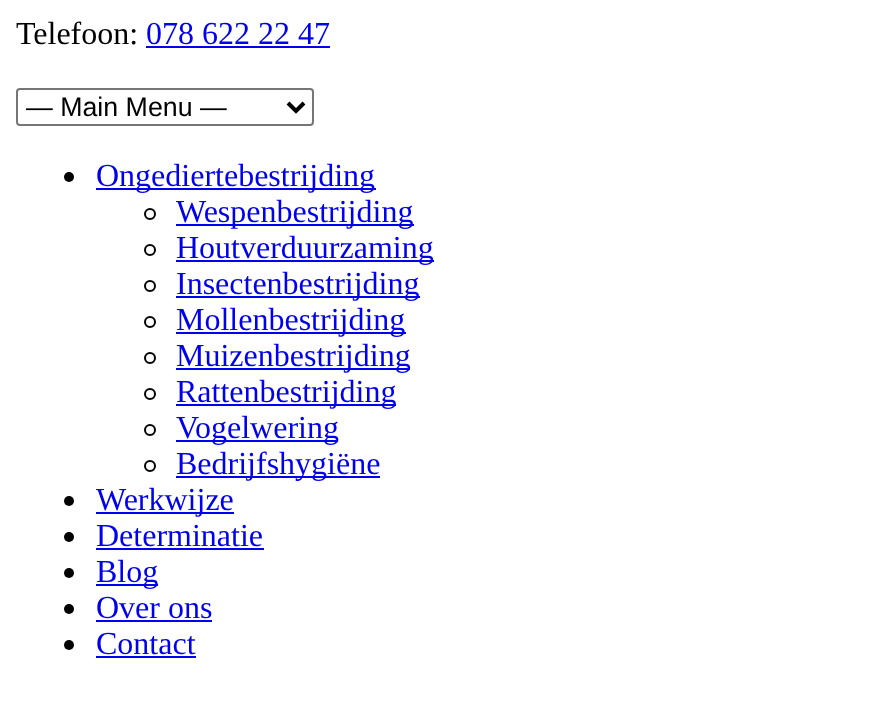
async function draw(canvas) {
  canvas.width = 869
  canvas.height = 712
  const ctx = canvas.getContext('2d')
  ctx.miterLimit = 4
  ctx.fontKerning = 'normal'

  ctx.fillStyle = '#fff'
  ctx.fillRect(0, 0, 869, 712)
  ctx.font = '32px Liberation Serif'
  ctx.fillStyle = '#000'
  ctx.fillText('Telefoon:', 16, 44)
  ctx.fillStyle = '#00e'
  ctx.fillText('078 622 22 47', 146, 44)
  ctx.fillRect(146, 46, 184, 2)
  ctx.beginPath()
  ctx.roundRect(17, 89, 296, 36, 3)
  ctx.strokeStyle = '#767676'
  ctx.lineWidth = 2
  ctx.stroke()
  ctx.beginPath()
  ctx.moveTo(288, 103)
  ctx.lineTo(296, 111)
  ctx.lineTo(304, 103)
  ctx.strokeStyle = '#000'
  ctx.lineWidth = 4
  ctx.stroke()
  ctx.font = '26.75px Liberation Sans'
  ctx.fillStyle = '#000'
  ctx.fillText('— Main Menu —', 26, 116)
  ctx.beginPath()
  ctx.arc(69, 177, 5, 0, 2 * Math.PI)
  ctx.fill()
  ctx.fillStyle = '#00e'
  ctx.fillRect(96, 188, 280, 2)
  ctx.font = '32px Liberation Serif'
  ctx.fillText('Ongediertebestrijding', 96, 186)
  ctx.beginPath()
  ctx.arc(150, 214, 5, 0, 2 * Math.PI)
  ctx.lineWidth = 2
  ctx.stroke()
  ctx.fillRect(176, 224, 238, 2)
  ctx.fillText('Wespenbestrijding', 176, 222)
  ctx.beginPath()
  ctx.arc(150, 250, 5, 0, 2 * Math.PI)
  ctx.stroke()
  ctx.fillRect(176, 260, 258, 2)
  ctx.fillText('Houtverduurzaming', 176, 258)
  ctx.beginPath()
  ctx.arc(150, 286, 5, 0, 2 * Math.PI)
  ctx.stroke()
  ctx.fillRect(176, 296, 244, 2)
  ctx.fillText('Insectenbestrijding', 176, 294)
  ctx.beginPath()
  ctx.arc(150, 322, 5, 0, 2 * Math.PI)
  ctx.stroke()
  ctx.fillRect(176, 332, 230, 2)
  ctx.fillText('Mollenbestrijding', 176, 330)
  ctx.beginPath()
  ctx.arc(150, 358, 5, 0, 2 * Math.PI)
  ctx.stroke()
  ctx.fillRect(176, 368, 234, 2)
  ctx.fillText('Muizenbestrijding', 176, 366)
  ctx.beginPath()
  ctx.arc(150, 394, 5, 0, 2 * Math.PI)
  ctx.stroke()
  ctx.fillRect(176, 404, 220, 2)
  ctx.fillText('Rattenbestrijding', 176, 402)
  ctx.beginPath()
  ctx.arc(150, 430, 5, 0, 2 * Math.PI)
  ctx.stroke()
  ctx.fillRect(176, 440, 162, 2)
  ctx.fillText('Vogelwering', 176, 438)
  ctx.beginPath()
  ctx.arc(150, 466, 5, 0, 2 * Math.PI)
  ctx.stroke()
  ctx.fillRect(176, 476, 204, 2)
  ctx.fillText('Bedrijfshygiëne', 176, 474)
  ctx.fillStyle = '#000'
  ctx.beginPath()
  ctx.arc(69, 501, 5, 0, 2 * Math.PI)
  ctx.fill()
  ctx.fillStyle = '#00e'
  ctx.fillRect(96, 512, 138, 2)
  ctx.fillText('Werkwijze', 96, 510)
  ctx.fillStyle = '#000'
  ctx.beginPath()
  ctx.arc(69, 537, 5, 0, 2 * Math.PI)
  ctx.fill()
  ctx.fillStyle = '#00e'
  ctx.fillText('Determinatie', 96, 546)
  ctx.fillRect(96, 548, 168, 2)
  ctx.fillStyle = '#000'
  ctx.beginPath()
  ctx.arc(69, 573, 5, 0, 2 * Math.PI)
  ctx.fill()
  ctx.fillStyle = '#00e'
  ctx.fillRect(96, 584, 62, 2)
  ctx.fillText('Blog', 96, 582)
  ctx.fillStyle = '#000'
  ctx.beginPath()
  ctx.arc(69, 609, 5, 0, 2 * Math.PI)
  ctx.fill()
  ctx.fillStyle = '#00e'
  ctx.fillText('Over ons', 96, 618)
  ctx.fillRect(96, 620, 116, 2)
  ctx.fillStyle = '#000'
  ctx.beginPath()
  ctx.arc(69, 645, 5, 0, 2 * Math.PI)
  ctx.fill()
  ctx.fillStyle = '#00e'
  ctx.fillText('Contact', 96, 654)
  ctx.fillRect(96, 656, 100, 2)
}

draw(document.querySelector('canvas'))
